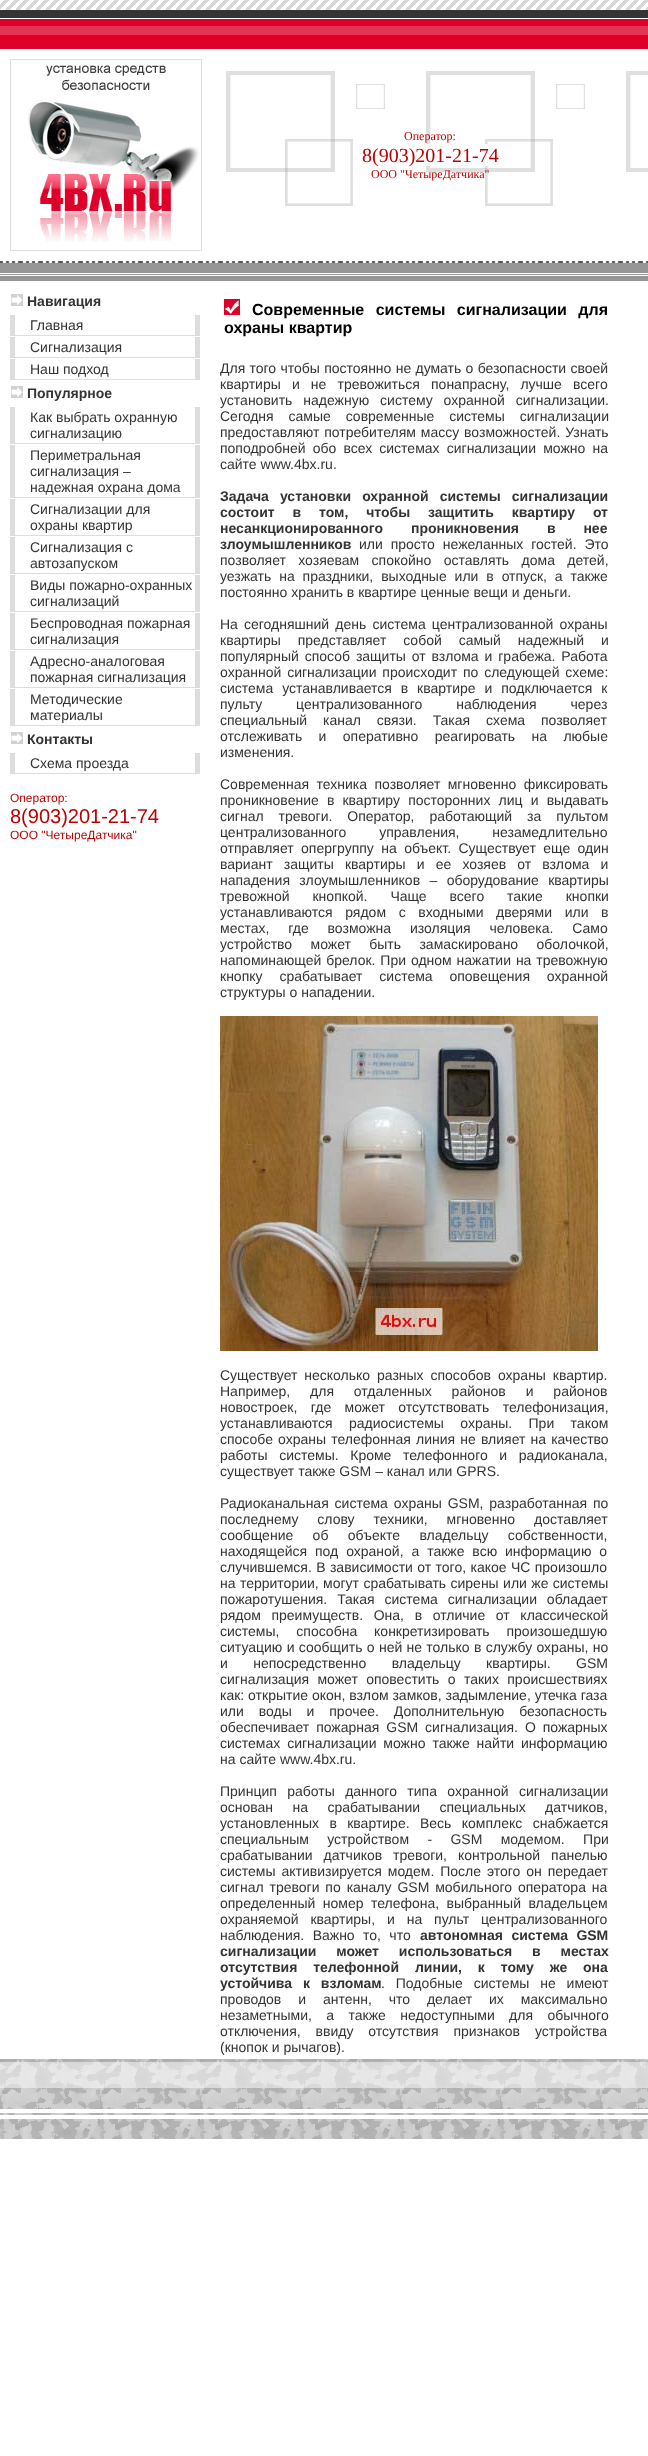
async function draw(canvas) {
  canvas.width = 648
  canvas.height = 2456
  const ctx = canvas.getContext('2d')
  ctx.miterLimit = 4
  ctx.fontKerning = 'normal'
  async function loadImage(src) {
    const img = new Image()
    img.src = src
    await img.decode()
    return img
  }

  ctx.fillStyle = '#fff'
  ctx.fillRect(0, 0, 648, 2456)
  ctx.drawImage(await loadImage('image0.png'), 0, 0, 648, 10)
  ctx.fillStyle = '#343434'
  ctx.fillRect(0, 10, 648, 8)
  ctx.drawImage(await loadImage('image1.png'), 0, 19, 648, 30)
  ctx.strokeStyle = '#ddd'
  ctx.strokeRect(10.5, 59.5, 191, 191)
  ctx.drawImage(await loadImage('image2.png'), 28, 65, 172, 177)
  ctx.drawImage(await loadImage('image3.png'), 226, 71, 422, 135)
  ctx.font = '12px Liberation Serif'
  ctx.fillStyle = '#ba0203'
  ctx.fillText('Оператор:', 404, 140)
  ctx.fillStyle = '#fff'
  ctx.fillRect(426, 144, 62, 22)
  ctx.font = '20px Liberation Serif'
  ctx.fillStyle = '#ba0203'
  ctx.fillText('8(903)201-21-74', 362, 162)
  ctx.font = '12px Liberation Serif'
  ctx.fillText('ООО "ЧетыреДатчика"', 371, 178)
  ctx.drawImage(await loadImage('image4.png'), 0, 261, 648, 20)
  ctx.drawImage(await loadImage('image5.png'), 11, 294, 12, 12)
  ctx.font = 'bold 14px Liberation Sans'
  ctx.fillStyle = '#333'
  ctx.fillText('Навигация', 27, 306)
  ctx.fillStyle = '#ddd'
  ctx.fillRect(195, 315, 5, 21)
  ctx.fillRect(10, 335, 190, 1)
  ctx.fillRect(10, 315, 5, 21)
  ctx.font = '14px Liberation Sans'
  ctx.fillStyle = '#333'
  ctx.fillText('Главная', 30, 330)
  ctx.fillStyle = '#ddd'
  ctx.fillRect(195, 337, 5, 21)
  ctx.fillRect(10, 357, 190, 1)
  ctx.fillRect(10, 337, 5, 21)
  ctx.fillStyle = '#333'
  ctx.fillText('Сигнализация', 30, 352)
  ctx.fillStyle = '#ddd'
  ctx.fillRect(195, 359, 5, 21)
  ctx.fillRect(10, 379, 190, 1)
  ctx.fillRect(10, 359, 5, 21)
  ctx.fillStyle = '#333'
  ctx.fillText('Наш подход', 30, 374)
  ctx.drawImage(await loadImage('image5.png'), 11, 386, 12, 12)
  ctx.font = 'bold 14px Liberation Sans'
  ctx.fillText('Популярное', 27, 398)
  ctx.fillStyle = '#ddd'
  ctx.fillRect(195, 407, 5, 37)
  ctx.fillRect(10, 443, 190, 1)
  ctx.fillRect(10, 407, 5, 37)
  ctx.font = '14px Liberation Sans'
  ctx.fillStyle = '#333'
  ctx.fillText('Как выбрать охранную', 30, 422)
  ctx.fillText('сигнализацию', 30, 438)
  ctx.fillStyle = '#ddd'
  ctx.fillRect(195, 445, 5, 53)
  ctx.fillRect(10, 497, 190, 1)
  ctx.fillRect(10, 445, 5, 53)
  ctx.fillStyle = '#333'
  ctx.fillText('Периметральная', 30, 460)
  ctx.fillText('сигнализация –', 30, 476)
  ctx.fillText('надежная охрана дома', 30, 492)
  ctx.fillStyle = '#ddd'
  ctx.fillRect(195, 499, 5, 37)
  ctx.fillRect(10, 535, 190, 1)
  ctx.fillRect(10, 499, 5, 37)
  ctx.fillStyle = '#333'
  ctx.fillText('Сигнализации для', 30, 514)
  ctx.fillText('охраны квартир', 30, 530)
  ctx.fillStyle = '#ddd'
  ctx.fillRect(195, 537, 5, 37)
  ctx.fillRect(10, 573, 190, 1)
  ctx.fillRect(10, 537, 5, 37)
  ctx.fillStyle = '#333'
  ctx.fillText('Сигнализация с', 30, 552)
  ctx.fillText('автозапуском', 30, 568)
  ctx.fillStyle = '#ddd'
  ctx.fillRect(195, 575, 5, 37)
  ctx.fillRect(10, 611, 190, 1)
  ctx.fillRect(10, 575, 5, 37)
  ctx.fillStyle = '#333'
  ctx.fillText('Виды пожарно-охранных', 30, 590)
  ctx.fillText('сигнализаций', 30, 606)
  ctx.fillStyle = '#ddd'
  ctx.fillRect(195, 613, 5, 37)
  ctx.fillRect(10, 649, 190, 1)
  ctx.fillRect(10, 613, 5, 37)
  ctx.fillStyle = '#333'
  ctx.fillText('Беспроводная пожарная', 30, 628)
  ctx.fillText('сигнализация', 30, 644)
  ctx.fillStyle = '#ddd'
  ctx.fillRect(195, 651, 5, 37)
  ctx.fillRect(10, 687, 190, 1)
  ctx.fillRect(10, 651, 5, 37)
  ctx.fillStyle = '#333'
  ctx.fillText('Адресно-аналоговая', 30, 666)
  ctx.fillText('пожарная сигнализация', 30, 682)
  ctx.fillStyle = '#ddd'
  ctx.fillRect(195, 689, 5, 37)
  ctx.fillRect(10, 725, 190, 1)
  ctx.fillRect(10, 689, 5, 37)
  ctx.fillStyle = '#333'
  ctx.fillText('Методические', 30, 704)
  ctx.fillText('материалы', 30, 720)
  ctx.drawImage(await loadImage('image5.png'), 11, 732, 12, 12)
  ctx.font = 'bold 14px Liberation Sans'
  ctx.fillText('Контакты', 27, 744)
  ctx.fillStyle = '#ddd'
  ctx.fillRect(195, 753, 5, 21)
  ctx.fillRect(10, 773, 190, 1)
  ctx.fillRect(10, 753, 5, 21)
  ctx.font = '14px Liberation Sans'
  ctx.fillStyle = '#333'
  ctx.fillText('Схема проезда', 30, 768)
  ctx.font = '12px Liberation Sans'
  ctx.fillStyle = '#ba0203'
  ctx.fillText('Оператор:', 10, 802)
  ctx.font = '20px Liberation Sans'
  ctx.fillText('8(903)201-21-74', 10, 823)
  ctx.font = '12px Liberation Sans'
  ctx.fillText('ООО "ЧетыреДатчика"', 10, 839)
  ctx.drawImage(await loadImage('image6.png'), 224, 299, 16, 16)
  ctx.wordSpacing = '7px'
  ctx.font = 'bold 16px Liberation Sans'
  ctx.fillStyle = '#000'
  ctx.fillText('Современные системы сигнализации для', 252, 315)
  ctx.wordSpacing = '0px'
  ctx.fillText('охраны квартир', 224, 333)
  ctx.wordSpacing = '0.4px'
  ctx.font = '14px Liberation Sans'
  ctx.fillStyle = '#333'
  ctx.fillText('Для того чтобы постоянно не думать о безопасности своей', 220, 373)
  ctx.wordSpacing = '7.25px'
  ctx.fillText('квартиры и не тревожиться понапрасну, лучше всего', 220, 389)
  ctx.wordSpacing = '7px'
  ctx.fillText('установить надежную систему охранной сигнализации.', 220, 405)
  ctx.wordSpacing = '11px'
  ctx.fillText('Сегодня самые современные системы сигнализации', 220, 421)
  ctx.wordSpacing = '1px'
  ctx.fillText('предоставляют потребителям массу возможностей. Узнать', 220, 437)
  ctx.wordSpacing = '3.25px'
  ctx.fillText('поподробней обо всех системах сигнализации можно на', 220, 453)
  ctx.wordSpacing = '0px'
  ctx.fillText('сайте www.4bx.ru.', 220, 469)
  ctx.wordSpacing = '7.25px'
  ctx.font = 'bold 14px Liberation Sans'
  ctx.fillText('Задача установки охранной системы сигнализации', 220, 501)
  ctx.wordSpacing = '14px'
  ctx.fillText('состоит в том, чтобы защитить квартиру от', 220, 517)
  ctx.wordSpacing = '24px'
  ctx.fillText('несанкционированного проникновения в нее', 220, 533)
  ctx.wordSpacing = '0px'
  ctx.fillText('злоумышленников', 220, 549)
  ctx.wordSpacing = '4px'
  ctx.font = '14px Liberation Sans'
  ctx.fillText('или просто нежеланных гостей. Это', 359, 549)
  ctx.wordSpacing = '8.5px'
  ctx.fillText('позволяет хозяевам спокойно оставлять дома детей,', 220, 565)
  ctx.wordSpacing = '4px'
  ctx.fillText('уезжать на праздники, выходные или в отпуск, а также', 220, 581)
  ctx.wordSpacing = '0px'
  ctx.fillText('постоянно хранить в квартире ценные вещи и деньги.', 220, 597)
  ctx.wordSpacing = '2.25px'
  ctx.fillText('На сегодняшний день система централизованной охраны', 220, 629)
  ctx.wordSpacing = '13px'
  ctx.fillText('квартиры представляет собой самый надежный и', 220, 645)
  ctx.wordSpacing = '2px'
  ctx.fillText('популярный способ защиты от взлома и грабежа. Работа', 220, 661)
  ctx.fillText('охранной сигнализации происходит по следующей схеме:', 220, 677)
  ctx.wordSpacing = '5px'
  ctx.fillText('система устанавливается в квартире и подключается к', 220, 693)
  ctx.wordSpacing = '30px'
  ctx.fillText('пульту централизованного наблюдения через', 220, 709)
  ctx.wordSpacing = '12px'
  ctx.fillText('специальный канал связи. Такая схема позволяет', 220, 725)
  ctx.wordSpacing = '12.5px'
  ctx.fillText('отслеживать и оперативно реагировать на любые', 220, 741)
  ctx.wordSpacing = '0px'
  ctx.fillText('изменения.', 220, 757)
  ctx.wordSpacing = '3.5px'
  ctx.fillText('Современная техника позволяет мгновенно фиксировать', 220, 789)
  ctx.wordSpacing = '4.25px'
  ctx.fillText('проникновение в квартиру посторонних лиц и выдавать', 220, 805)
  ctx.wordSpacing = '11px'
  ctx.fillText('сигнал тревоги. Оператор, работающий за пультом', 220, 821)
  ctx.wordSpacing = '29px'
  ctx.fillText('централизованного управления, незамедлительно', 220, 837)
  ctx.wordSpacing = '3.5px'
  ctx.fillText('отправляет опергруппу на объект. Существует еще один', 220, 853)
  ctx.wordSpacing = '7.25px'
  ctx.fillText('вариант защиты квартиры и ее хозяев от взлома и', 220, 869)
  ctx.wordSpacing = '5.5px'
  ctx.fillText('нападения злоумышленников – оборудование квартиры', 220, 885)
  ctx.wordSpacing = '19px'
  ctx.fillText('тревожной кнопкой. Чаще всего такие кнопки', 220, 901)
  ctx.wordSpacing = '8.75px'
  ctx.fillText('устанавливаются рядом с входными дверями или в', 220, 917)
  ctx.wordSpacing = '15px'
  ctx.fillText('местах, где возможна изоляция человека. Само', 220, 933)
  ctx.wordSpacing = '14.5px'
  ctx.fillText('устройство может быть замаскировано оболочкой,', 220, 949)
  ctx.wordSpacing = '1px'
  ctx.fillText('напоминающей брелок. При одном нажатии на тревожную', 220, 965)
  ctx.wordSpacing = '13px'
  ctx.fillText('кнопку срабатывает система оповещения охранной', 220, 981)
  ctx.wordSpacing = '0px'
  ctx.fillText('структуры о нападении.', 220, 997)
  ctx.drawImage(await loadImage('image7.png'), 220, 1016, 378, 335)
  ctx.wordSpacing = '3px'
  ctx.fillText('Существует несколько разных способов охраны квартир.', 220, 1380)
  ctx.wordSpacing = '16px'
  ctx.fillText('Например, для отдаленных районов и районов', 220, 1396)
  ctx.wordSpacing = '9.5px'
  ctx.fillText('новостроек, где может отсутствовать телефонизация,', 220, 1412)
  ctx.wordSpacing = '12.5px'
  ctx.fillText('устанавливаются радиосистемы охраны. При таком', 220, 1428)
  ctx.wordSpacing = '1.25px'
  ctx.fillText('способе охраны телефонная линия не влияет на качество', 220, 1444)
  ctx.wordSpacing = '7.75px'
  ctx.fillText('работы системы. Кроме телефонного и радиоканала,', 220, 1460)
  ctx.wordSpacing = '0px'
  ctx.fillText('существует также GSM – канал или GPRS.', 220, 1476)
  ctx.wordSpacing = '2px'
  ctx.fillText('Радиоканальная система охраны GSM, разработанная по', 220, 1508)
  ctx.wordSpacing = '15px'
  ctx.fillText('последнему слову техники, мгновенно доставляет', 220, 1524)
  ctx.wordSpacing = '15.5px'
  ctx.fillText('сообщение об объекте владельцу собственности,', 220, 1540)
  ctx.wordSpacing = '4px'
  ctx.fillText('находящейся под охраной, а также всю информацию о', 220, 1556)
  ctx.wordSpacing = '0.5px'
  ctx.fillText('случившемся. В зависимости от того, какое ЧС произошло', 220, 1572)
  ctx.fillText('на территории, могут срабатывать сирены или же системы', 220, 1588)
  ctx.wordSpacing = '6px'
  ctx.fillText('пожаротушения. Такая система сигнализации обладает', 220, 1604)
  ctx.wordSpacing = '6.75px'
  ctx.fillText('рядом преимуществ. Она, в отличие от классической', 220, 1620)
  ctx.wordSpacing = '13px'
  ctx.fillText('системы, способна конкретизировать произошедшую', 220, 1636)
  ctx.wordSpacing = '0.4px'
  ctx.fillText('ситуацию и сообщить о ней не только в службу охраны, но', 220, 1652)
  ctx.wordSpacing = '21.5px'
  ctx.fillText('и непосредственно владельцу квартиры. GSM', 220, 1668)
  ctx.wordSpacing = '4.5px'
  ctx.fillText('сигнализация может оповестить о таких происшествиях', 220, 1684)
  ctx.wordSpacing = '0px'
  ctx.fillText('как: открытие окон, взлом замков, задымление, утечка газа', 220, 1700)
  ctx.wordSpacing = '11px'
  ctx.fillText('или воды и прочее. Дополнительную безопасность', 220, 1716)
  ctx.wordSpacing = '3px'
  ctx.fillText('обеспечивает пожарная GSM сигнализация. О пожарных', 220, 1732)
  ctx.fillText('системах сигнализации можно также найти информацию', 220, 1748)
  ctx.wordSpacing = '0px'
  ctx.fillText('на сайте www.4bx.ru.', 220, 1764)
  ctx.wordSpacing = '6.5px'
  ctx.fillText('Принцип работы данного типа охранной сигнализации', 220, 1796)
  ctx.wordSpacing = '15.5px'
  ctx.fillText('основан на срабатывании специальных датчиков,', 220, 1812)
  ctx.wordSpacing = '6.5px'
  ctx.fillText('установленных в квартире. Весь комплекс снабжается', 220, 1828)
  ctx.wordSpacing = '14.5px'
  ctx.fillText('специальным устройством - GSM модемом. При', 220, 1844)
  ctx.wordSpacing = '7px'
  ctx.fillText('срабатывании датчиков тревоги, контрольной панелью', 220, 1860)
  ctx.wordSpacing = '2px'
  ctx.fillText('системы активизируется модем. После этого он передает', 220, 1876)
  ctx.fillText('сигнал тревоги по каналу GSM мобильного оператора на', 220, 1892)
  ctx.wordSpacing = '3.5px'
  ctx.fillText('определенный номер телефона, выбранный владельцем', 220, 1908)
  ctx.wordSpacing = '8px'
  ctx.fillText('охраняемой квартиры, и на пульт централизованного', 220, 1924)
  ctx.wordSpacing = '4.5px'
  ctx.fillText('наблюдения. Важно то, что', 220, 1940)
  ctx.font = 'bold 14px Liberation Sans'
  ctx.fillText('автономная система GSM', 420, 1940)
  ctx.wordSpacing = '16px'
  ctx.fillText('сигнализации может использоваться в местах', 220, 1956)
  ctx.wordSpacing = '12px'
  ctx.fillText('отсутствия телефонной линии, к тому же она', 220, 1972)
  ctx.wordSpacing = '7px'
  ctx.fillText('устойчива к взломам', 220, 1988)
  ctx.font = '14px Liberation Sans'
  ctx.fillText('. Подобные системы не имеют', 381, 1988)
  ctx.wordSpacing = '13px'
  ctx.fillText('проводов и антенн, что делает их максимально', 220, 2004)
  ctx.wordSpacing = '10.5px'
  ctx.fillText('незаметными, а также недоступными для обычного', 220, 2020)
  ctx.wordSpacing = '11px'
  ctx.fillText('отключения, ввиду отсутствия признаков устройства', 220, 2036)
  ctx.wordSpacing = '0px'
  ctx.fillText('(кнопок и рычагов).', 220, 2052)
  ctx.drawImage(await loadImage('image8.png'), 0, 2059, 648, 80)
}

draw(document.querySelector('canvas'))
